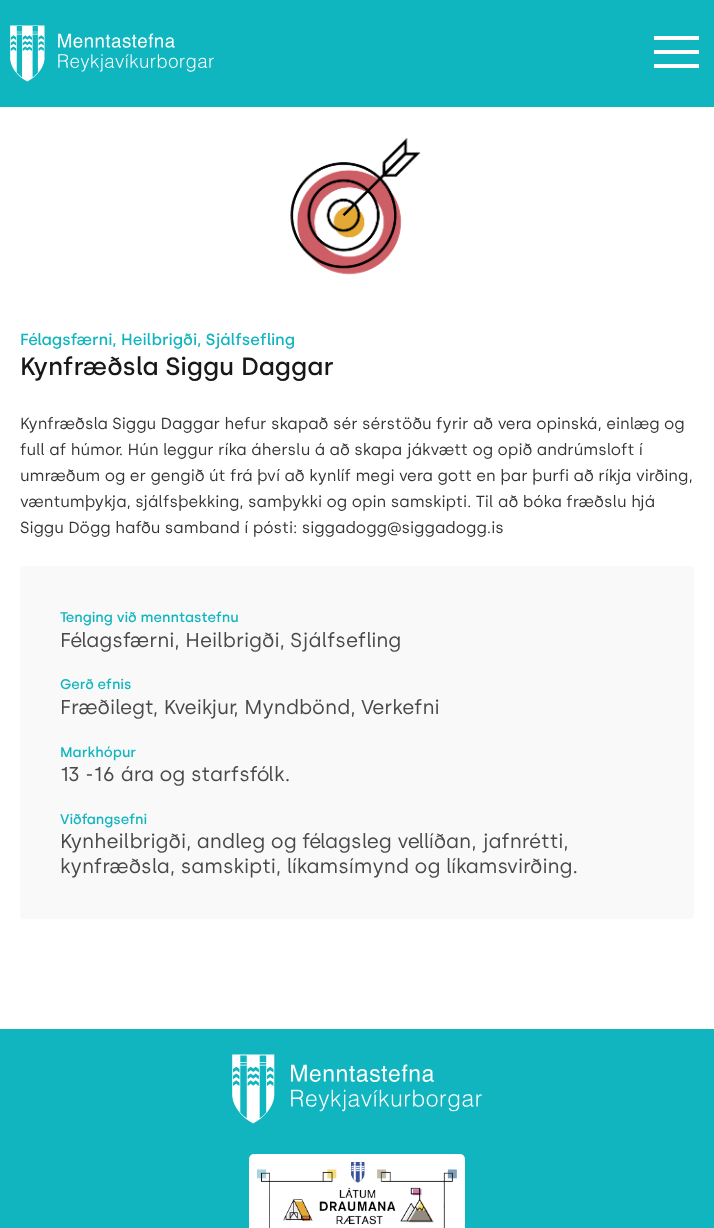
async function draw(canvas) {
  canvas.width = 714
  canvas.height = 1228
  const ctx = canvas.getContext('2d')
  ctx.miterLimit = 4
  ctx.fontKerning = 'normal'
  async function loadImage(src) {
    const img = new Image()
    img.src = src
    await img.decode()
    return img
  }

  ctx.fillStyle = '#fff'
  ctx.fillRect(0, 0, 714, 1228)
  ctx.fillStyle = '#0fb5bf'
  ctx.fillRect(0, 0, 714, 107)
  ctx.drawImage(await loadImage('image0.png'), 10, 25, 204, 57)
  ctx.fillStyle = '#fff'
  ctx.fillRect(654, 50, 45, 4)
  ctx.fillRect(654, 36, 45, 4)
  ctx.fillRect(654, 64, 45, 4)
  ctx.drawImage(await loadImage('image1.png'), 290, 138, 131, 137)
  ctx.font = '500 16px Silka'
  ctx.fillStyle = '#10b5bf'
  ctx.fillText('Félagsfærni, Heilbrigði, Sjálfsefling', 20, 345)
  ctx.font = '500 25px Silka'
  ctx.fillStyle = '#181818'
  ctx.fillText('Kynfræðsla Siggu Daggar', 20, 375)
  ctx.font = '16px Silka'
  ctx.fillStyle = '#353535'
  ctx.fillText('Kynfræðsla Siggu Daggar hefur skapað sér sérstöðu fyrir að vera opinská, einlæg og', 20, 429)
  ctx.fillText('full af húmor. Hún leggur ríka áherslu á að skapa jákvætt og opið andrúmsloft í', 20, 455)
  ctx.fillText('umræðum og er gengið út frá því að kynlíf megi vera gott en þar þurfi að ríkja virðing,', 20, 481)
  ctx.fillText('væntumþykja, sjálfsþekking, samþykki og opin samskipti. Til að bóka fræðslu hjá', 20, 507)
  ctx.fillText('Siggu Dögg hafðu samband í pósti: siggadogg@siggadogg.is', 20, 533)
  ctx.fillStyle = '#f9f9f9'
  ctx.beginPath()
  ctx.roundRect(20, 566, 674, 353, 4)
  ctx.fill()
  ctx.font = '500 14px Silka'
  ctx.fillStyle = '#10b5bf'
  ctx.fillText('Tenging við menntastefnu', 60, 622)
  ctx.font = '20px Silka'
  ctx.fillStyle = '#494949'
  ctx.fillText('Félagsfærni, Heilbrigði, Sjálfsefling', 60, 647)
  ctx.font = '500 14px Silka'
  ctx.fillStyle = '#10b5bf'
  ctx.fillText('Gerð efnis', 60, 689)
  ctx.font = '20px Silka'
  ctx.fillStyle = '#494949'
  ctx.fillText('Fræðilegt, Kveikjur, Myndbönd, Verkefni', 60, 714)
  ctx.font = '500 14px Silka'
  ctx.fillStyle = '#10b5bf'
  ctx.fillText('Markhópur', 60, 757)
  ctx.font = '20px Silka'
  ctx.fillStyle = '#494949'
  ctx.fillText('13 -16 ára og starfsfólk.', 60, 781)
  ctx.font = '500 14px Silka'
  ctx.fillStyle = '#10b5bf'
  ctx.fillText('Viðfangsefni', 60, 824)
  ctx.font = '20px Silka'
  ctx.fillStyle = '#494949'
  ctx.fillText('Kynheilbrigði, andleg og félagsleg vellíðan, jafnrétti,', 60, 848)
  ctx.fillText('kynfræðsla, samskipti, líkamsímynd og líkamsvirðing.', 60, 873)
  ctx.fillStyle = '#10b5bf'
  ctx.fillRect(0, 1029, 714, 199)
  ctx.drawImage(await loadImage('image2.png'), 232, 1054, 250, 70)
  ctx.fillStyle = '#fff'
  ctx.beginPath()
  ctx.roundRect(249, 1154, 216, 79, 5)
  ctx.fill()
  ctx.drawImage(await loadImage('image3.png'), 257, 1162, 200, 66)
}

draw(document.querySelector('canvas'))
